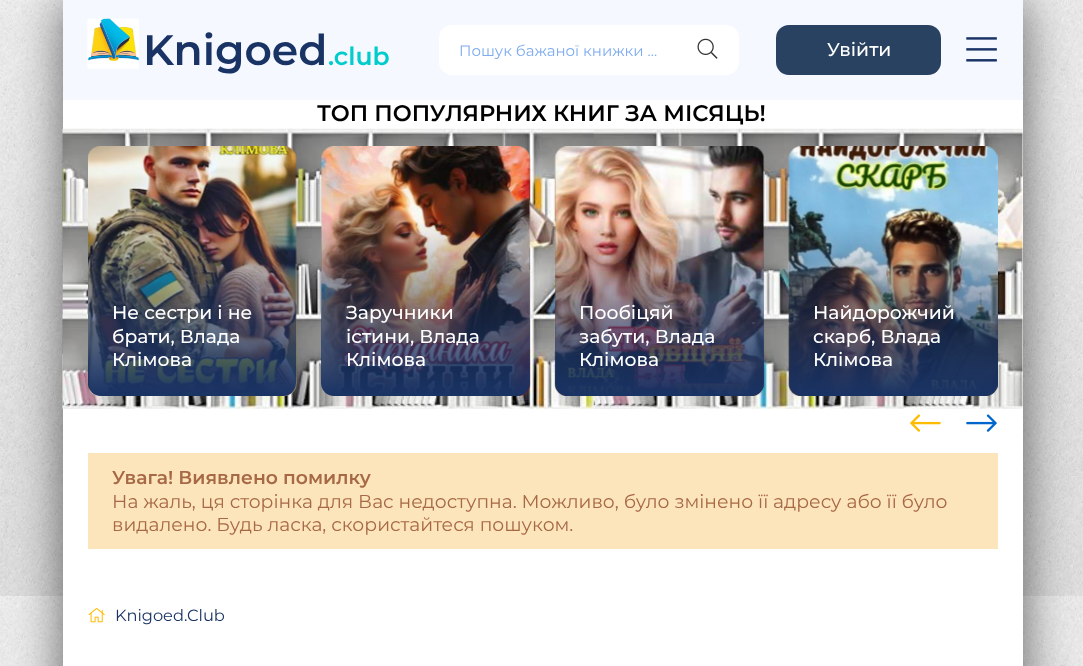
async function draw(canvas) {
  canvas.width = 1083
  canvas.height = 666
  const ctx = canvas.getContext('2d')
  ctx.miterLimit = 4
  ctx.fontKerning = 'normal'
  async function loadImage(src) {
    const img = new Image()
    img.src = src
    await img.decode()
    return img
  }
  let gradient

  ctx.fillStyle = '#fff'
  ctx.fillRect(0, 0, 1083, 666)
  ctx.drawImage(await loadImage('image0.png'), 0, 0, 1083, 666)
  ctx.fillStyle = '#00000099'
  ctx.filter = 'blur(25px)'
  ctx.beginPath()
  ctx.rect(63, 0, 960, 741)
  ctx.fill()
  ctx.filter = 'none'
  ctx.fillStyle = '#fff'
  ctx.fillRect(63, 100, 960, 566)
  ctx.fillStyle = '#f5f8ff'
  ctx.fillRect(63, 0, 960, 100)
  ctx.drawImage(await loadImage('image1.png'), 87, 18, 52, 51)
  ctx.font = '600 42.5px Montserrat'
  ctx.fillStyle = '#193364'
  ctx.fillText('Knigoed', 143, 65)
  ctx.font = '600 25px Montserrat'
  ctx.fillStyle = '#0cc'
  ctx.fillText('.club', 328, 65)
  ctx.fillStyle = '#fff'
  ctx.beginPath()
  ctx.roundRect(439, 25, 300, 50, 13)
  ctx.fill()
  ctx.font = '15px Montserrat'
  ctx.fillStyle = '#7facf0'
  ctx.fillText('Пошук бажаної книжки ...', 459, 56)
  ctx.drawImage(await loadImage('image2.png'), 697, 38, 21, 21)
  ctx.fillStyle = '#2a4262'
  ctx.beginPath()
  ctx.roundRect(776, 25, 165, 50, 13)
  ctx.fill()
  ctx.font = '500 18.75px Montserrat'
  ctx.fillStyle = '#fff'
  ctx.fillText('Увійти', 827, 56)
  ctx.drawImage(await loadImage('image3.png'), 966, 37, 31, 25)
  ctx.font = '600 22.5px Montserrat'
  ctx.fillStyle = '#000'
  ctx.fillText('ТОП ПОПУЛЯРНИХ КНИГ ЗА МІСЯЦЬ!', 317, 121)
  ctx.drawImage(await loadImage('image4.png'), 62, 128, 961, 281)
  ctx.drawImage(await loadImage('image5.png'), 88, 146, 209, 250)
  gradient = ctx.createLinearGradient(192, 221, 192, 396)
  gradient.addColorStop(0, '#19336400')
  gradient.addColorStop(1, '#193364')
  ctx.fillStyle = gradient
  ctx.beginPath()
  ctx.roundRect(88, 221, 208, 175, [0, 0, 13, 13])
  ctx.fill()
  ctx.font = '500 18.75px Montserrat'
  ctx.fillStyle = '#fff'
  ctx.fillText('Не сестри і не', 112, 319)
  ctx.fillText('брати, Влада', 112, 343)
  ctx.fillText('Клімова', 112, 366)
  ctx.drawImage(await loadImage('image6.png'), 320, 146, 211, 250)
  gradient = ctx.createLinearGradient(426, 221, 426, 396)
  gradient.addColorStop(0, '#19336400')
  gradient.addColorStop(1, '#193364')
  ctx.fillStyle = gradient
  ctx.beginPath()
  ctx.roundRect(321, 221, 209, 175, [0, 0, 13, 13])
  ctx.fill()
  ctx.fillStyle = '#fff'
  ctx.fillText('Заручники', 346, 319)
  ctx.fillText('істини, Влада', 346, 343)
  ctx.fillText('Клімова', 346, 366)
  ctx.drawImage(await loadImage('image7.png'), 554, 146, 211, 250)
  gradient = ctx.createLinearGradient(659, 221, 659, 396)
  gradient.addColorStop(0, '#19336400')
  gradient.addColorStop(1, '#193364')
  ctx.fillStyle = gradient
  ctx.beginPath()
  ctx.roundRect(555, 221, 209, 175, [0, 0, 13, 13])
  ctx.fill()
  ctx.fillStyle = '#fff'
  ctx.fillText('Пообіцяй', 579, 319)
  ctx.fillText('забути, Влада', 579, 343)
  ctx.fillText('Клімова', 579, 366)
  ctx.drawImage(await loadImage('image8.png'), 788, 146, 210, 250)
  gradient = ctx.createLinearGradient(893, 221, 893, 396)
  gradient.addColorStop(0, '#19336400')
  gradient.addColorStop(1, '#193364')
  ctx.fillStyle = gradient
  ctx.beginPath()
  ctx.roundRect(789, 221, 209, 175, [0, 0, 13, 13])
  ctx.fill()
  ctx.fillStyle = '#fff'
  ctx.fillText('Найдорожчий', 813, 319)
  ctx.fillText('скарб, Влада', 813, 343)
  ctx.fillText('Клімова', 813, 366)
  ctx.drawImage(await loadImage('image9.png'), 910, 414, 31, 18)
  ctx.drawImage(await loadImage('image10.png'), 966, 414, 31, 18)
  ctx.fillStyle = '#fce5ba'
  ctx.fillRect(88, 453, 910, 96)
  ctx.font = '600 18.75px Montserrat'
  ctx.fillStyle = '#a76846'
  ctx.fillText('Увага! Виявлено помилку', 112, 484)
  ctx.font = '18.75px Montserrat'
  ctx.fillText('На жаль, ця сторінка для Вас недоступна. Можливо, було змінено її адресу або її було', 112, 508)
  ctx.fillText('видалено. Будь ласка, скористайтеся пошуком.', 112, 531)
  ctx.drawImage(await loadImage('image11.png'), 88, 608, 17, 15)
  ctx.font = '16.25px Montserrat'
  ctx.fillStyle = '#193364'
  ctx.fillText('Knigoed.Club', 115, 621)
}

draw(document.querySelector('canvas'))
